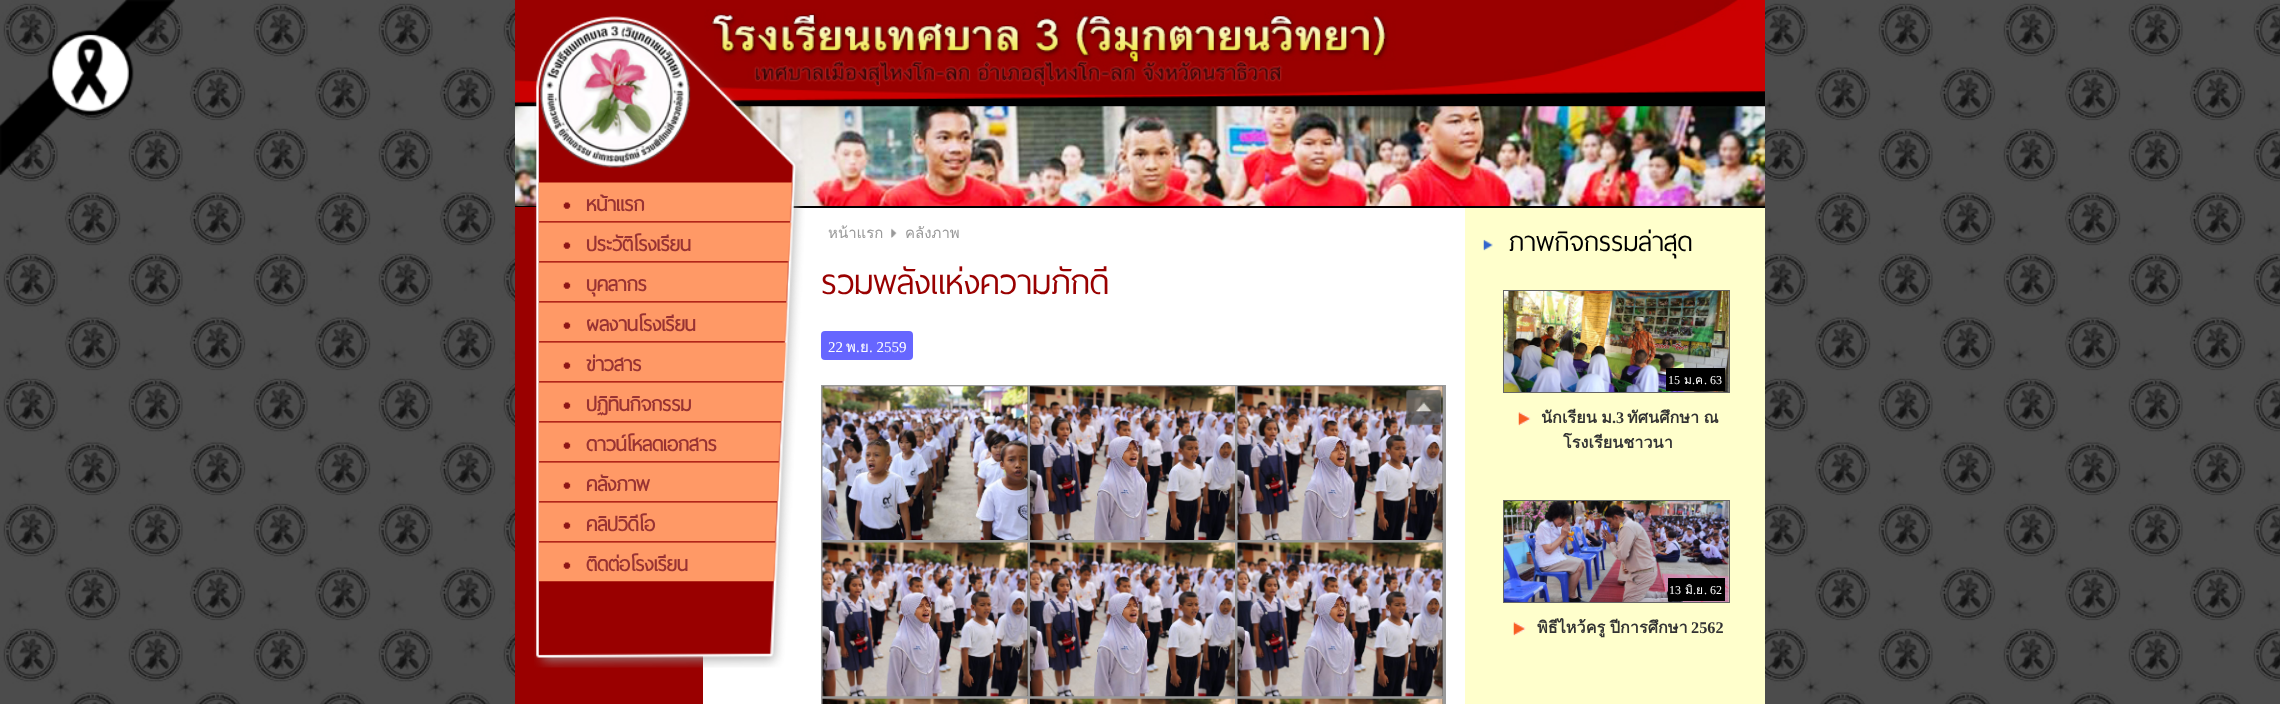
async function draw(canvas) {
  canvas.width = 2280
  canvas.height = 704
  const ctx = canvas.getContext('2d')
  ctx.miterLimit = 4
  ctx.fontKerning = 'normal'
  async function loadImage(src) {
    const img = new Image()
    img.src = src
    await img.decode()
    return img
  }

  ctx.fillStyle = '#fff'
  ctx.fillRect(0, 0, 2280, 704)
  ctx.drawImage(await loadImage('image0.png'), 0, 0, 2280, 704)
  ctx.drawImage(await loadImage('image1.png'), 0, 0, 175, 175)
  ctx.drawImage(await loadImage('image2.png'), 515, 0, 1250, 106)
  ctx.fillStyle = '#000'
  ctx.fillRect(515, 106, 1250, 102)
  ctx.drawImage(await loadImage('image3.png'), 515, 106, 1250, 100)
  ctx.fillStyle = '#fff'
  ctx.fillRect(703, 208, 762, 496)
  ctx.fillStyle = '#9a0000'
  ctx.fillRect(515, 207, 188, 497)
  ctx.drawImage(await loadImage('image4.png'), 534, 16, 271, 652)
  ctx.drawImage(await loadImage('image5.png'), 538, 182, 255, 40)
  ctx.drawImage(await loadImage('image6.png'), 563, 202, 8, 7)
  ctx.font = 'bold 26.25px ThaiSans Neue'
  ctx.fillStyle = '#933'
  ctx.fillText('หน้าแรก', 586, 211)
  ctx.drawImage(await loadImage('image7.png'), 538, 222, 254, 40)
  ctx.drawImage(await loadImage('image6.png'), 563, 242, 8, 7)
  ctx.fillText('ประวัติโรงเรียน', 586, 251)
  ctx.drawImage(await loadImage('image8.png'), 538, 262, 251, 40)
  ctx.drawImage(await loadImage('image6.png'), 563, 282, 8, 7)
  ctx.fillText('บุคลากร', 586, 291)
  ctx.drawImage(await loadImage('image9.png'), 538, 302, 250, 40)
  ctx.drawImage(await loadImage('image6.png'), 563, 322, 8, 7)
  ctx.fillText('ผลงานโรงเรียน', 586, 331)
  ctx.drawImage(await loadImage('image10.png'), 538, 342, 249, 40)
  ctx.drawImage(await loadImage('image6.png'), 563, 362, 8, 7)
  ctx.fillText('ข่าวสาร', 586, 371)
  ctx.drawImage(await loadImage('image11.png'), 538, 382, 246, 40)
  ctx.drawImage(await loadImage('image6.png'), 563, 402, 8, 7)
  ctx.fillText('ปฏิทินกิจกรรม', 586, 411)
  ctx.drawImage(await loadImage('image12.png'), 538, 422, 244, 40)
  ctx.drawImage(await loadImage('image6.png'), 563, 442, 8, 7)
  ctx.fillText('ดาวน์โหลดเอกสาร', 586, 451)
  ctx.drawImage(await loadImage('image13.png'), 538, 462, 243, 40)
  ctx.drawImage(await loadImage('image6.png'), 563, 482, 8, 7)
  ctx.fillText('คลังภาพ', 586, 491)
  ctx.drawImage(await loadImage('image14.png'), 538, 502, 240, 40)
  ctx.drawImage(await loadImage('image6.png'), 563, 522, 8, 7)
  ctx.fillText('คลิปวิดีโอ', 586, 531)
  ctx.drawImage(await loadImage('image15.png'), 538, 542, 239, 40)
  ctx.drawImage(await loadImage('image6.png'), 563, 562, 8, 7)
  ctx.fillText('ติดต่อโรงเรียน', 586, 571)
  ctx.font = '15px Loma'
  ctx.fillStyle = '#999'
  ctx.fillText('หน้าแรก', 828, 238)
  ctx.drawImage(await loadImage('image16.png'), 891, 228, 6, 10)
  ctx.fillText('คลังภาพ', 905, 238)
  ctx.font = '45px ThaiSans Neue'
  ctx.fillStyle = '#900'
  ctx.fillText('รวมพลังแห่งความภักดี', 821, 294)
  ctx.fillStyle = '#66f'
  ctx.beginPath()
  ctx.roundRect(821, 331, 92, 29, 4)
  ctx.fill()
  ctx.font = '15px Liberation Serif'
  ctx.fillStyle = '#fff'
  ctx.fillText('22', 828, 352)
  ctx.font = '15px Loma'
  ctx.fillText('พ', 846, 352)
  ctx.font = '15px Liberation Serif'
  ctx.fillText('.', 856, 352)
  ctx.font = '15px Loma'
  ctx.fillText('ย', 860, 352)
  ctx.font = '15px Liberation Serif'
  ctx.fillText('. 2559', 869, 352)
  ctx.fillStyle = '#999'
  ctx.fillRect(821, 385, 625, 319)
  ctx.fillStyle = '#666'
  ctx.fillRect(823, 386, 205, 154)
  ctx.drawImage(await loadImage('image17.png'), 822, 386, 206, 154)
  ctx.drawImage(await loadImage('image18.png'), 1030, 386, 205, 154)
  ctx.fillRect(1238, 386, 205, 154)
  ctx.drawImage(await loadImage('image19.png'), 1237, 386, 206, 154)
  ctx.fillRect(1027, 543, 1, 153)
  ctx.drawImage(await loadImage('image20.png'), 822, 542, 206, 155)
  ctx.drawImage(await loadImage('image21.png'), 1030, 542, 205, 155)
  ctx.fillRect(1442, 543, 1, 153)
  ctx.drawImage(await loadImage('image20.png'), 1237, 542, 206, 155)
  ctx.fillRect(1027, 699, 1, 5)
  ctx.drawImage(await loadImage('image22.png'), 822, 698, 206, 6)
  ctx.drawImage(await loadImage('image23.png'), 1030, 698, 205, 6)
  ctx.fillRect(1442, 699, 1, 5)
  ctx.drawImage(await loadImage('image22.png'), 1237, 698, 206, 6)
  ctx.drawImage(await loadImage('image24.png'), 1406, 389, 36, 37)
  ctx.fillStyle = '#ffc'
  ctx.fillRect(1465, 208, 300, 496)
  ctx.drawImage(await loadImage('image25.png'), 1483, 239, 10, 12)
  ctx.font = '35px ThaiSans Neue'
  ctx.fillStyle = '#000'
  ctx.fillText('ภาพกิจกรรมล่าสุด', 1509, 251)
  ctx.drawImage(await loadImage('image26.png'), 1504, 291, 225, 101)
  ctx.strokeStyle = '#666'
  ctx.strokeRect(1503.5, 290.5, 226, 102)
  ctx.fillRect(1666, 368, 59, 23)
  ctx.font = '12px Liberation Serif'
  ctx.fillStyle = '#fff'
  ctx.fillText('15', 1668, 384)
  ctx.font = '12px Loma'
  ctx.fillText('ม', 1684, 384)
  ctx.font = '12px Liberation Serif'
  ctx.fillText('.', 1692, 384)
  ctx.font = '12px Loma'
  ctx.fillText('ค', 1695, 384)
  ctx.font = '12px Liberation Serif'
  ctx.fillText('. 63', 1704, 384)
  ctx.drawImage(await loadImage('image27.png'), 1518, 412, 13, 14)
  ctx.wordSpacing = '-1px'
  ctx.font = 'bold 16.25px Loma'
  ctx.fillStyle = '#333'
  ctx.fillText('นักเรียน ม', 1541, 423)
  ctx.wordSpacing = '0px'
  ctx.font = 'bold 16.25px Liberation Serif'
  ctx.fillText('.3', 1612, 423)
  ctx.wordSpacing = '-1px'
  ctx.font = 'bold 16.25px Loma'
  ctx.fillText('ทัศนศึกษา ณ', 1627, 423)
  ctx.wordSpacing = '0px'
  ctx.fillText('โรงเรียนชาวนา', 1563, 448)
  ctx.drawImage(await loadImage('image28.png'), 1504, 501, 225, 101)
  ctx.strokeRect(1503.5, 500.5, 226, 102)
  ctx.fillStyle = '#000'
  ctx.fillRect(1668, 578, 57, 23)
  ctx.font = '12px Liberation Serif'
  ctx.fillStyle = '#fff'
  ctx.fillText('13', 1669, 594)
  ctx.font = '12px Loma'
  ctx.fillText('มิ', 1685, 594)
  ctx.font = '12px Liberation Serif'
  ctx.fillText('.', 1693, 594)
  ctx.font = '12px Loma'
  ctx.fillText('ย', 1696, 594)
  ctx.font = '12px Liberation Serif'
  ctx.fillText('. 62', 1704, 594)
  ctx.drawImage(await loadImage('image27.png'), 1513, 622, 13, 14)
  ctx.wordSpacing = '-1px'
  ctx.font = 'bold 16.25px Loma'
  ctx.fillStyle = '#333'
  ctx.fillText('พิธีไหว้ครู ปีการศึกษา', 1537, 633)
  ctx.wordSpacing = '0px'
  ctx.font = 'bold 16.25px Liberation Serif'
  ctx.fillText('2562', 1691, 633)
}

draw(document.querySelector('canvas'))
